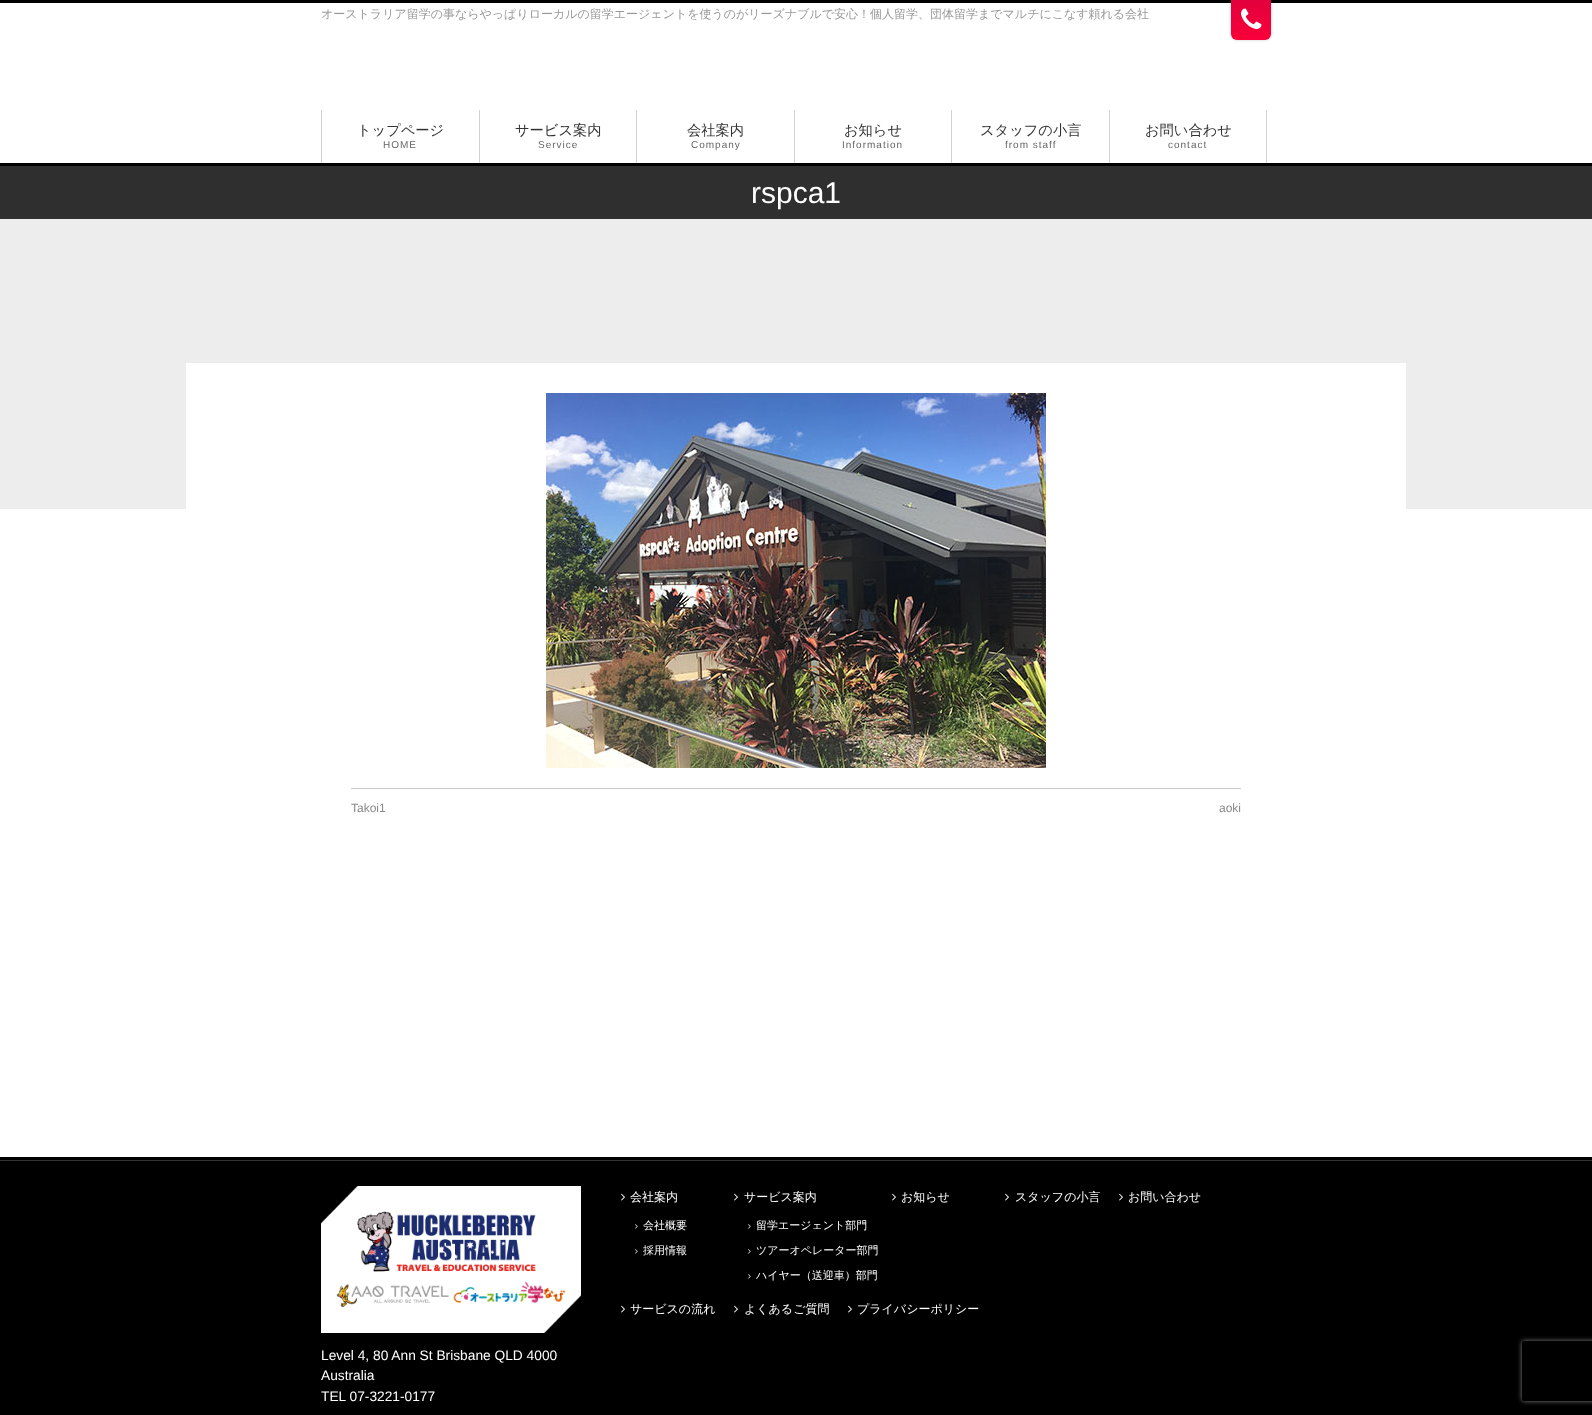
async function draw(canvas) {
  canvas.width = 1592
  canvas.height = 1415
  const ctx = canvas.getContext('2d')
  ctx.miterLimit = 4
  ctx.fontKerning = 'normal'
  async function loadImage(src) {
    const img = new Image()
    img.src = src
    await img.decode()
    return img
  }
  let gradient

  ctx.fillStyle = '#fff'
  ctx.fillRect(0, 0, 1592, 1415)
  ctx.fillStyle = '#000'
  ctx.fillRect(0, 0, 1592, 3)
  ctx.font = '500 12px WenQuanYi Zen Hei'
  ctx.fillStyle = '#999'
  ctx.fillText('オーストラリア留学の事ならやっぱりローカルの留学エージェントを使うのがリーズナブルで安心！個人留学、団体留学までマルチにこなす頼れる会社', 321, 18)
  ctx.fillStyle = '#00000033'
  ctx.filter = 'blur(1.5px)'
  ctx.beginPath()
  ctx.roundRect(1231, 0, 40, 40, 6)
  ctx.fill()
  ctx.filter = 'none'
  gradient = ctx.createLinearGradient(1251, 0, 1251, 40)
  gradient.addColorStop(0, '#e2003c')
  gradient.addColorStop(1, '#f9003a')
  ctx.fillStyle = gradient
  ctx.beginPath()
  ctx.roundRect(1231, 0, 40, 40, [0, 0, 6, 6])
  ctx.fill()
  ctx.drawImage(await loadImage('image0.png'), 1241, 8, 21, 21)
  ctx.fillStyle = '#000'
  ctx.fillRect(0, 163, 1592, 3)
  ctx.fillStyle = '#d1d1d1'
  ctx.fillRect(321, 110, 1, 53)
  ctx.fillRect(479, 110, 1, 53)
  ctx.font = '500 14.25px WenQuanYi Zen Hei'
  ctx.fillStyle = '#333'
  ctx.fillText('トップページ', 357, 135)
  ctx.letterSpacing = '1px'
  ctx.font = '10px Liberation Sans'
  ctx.fillStyle = '#666'
  ctx.fillText('HOME', 383, 148)
  ctx.fillStyle = '#d1d1d1'
  ctx.fillRect(636, 110, 1, 53)
  ctx.letterSpacing = '0px'
  ctx.font = '500 14.25px WenQuanYi Zen Hei'
  ctx.fillStyle = '#333'
  ctx.fillText('サービス案内', 515, 135)
  ctx.letterSpacing = '1px'
  ctx.font = '10px Liberation Sans'
  ctx.fillStyle = '#666'
  ctx.fillText('Service', 538, 148)
  ctx.fillStyle = '#d1d1d1'
  ctx.fillRect(794, 110, 1, 53)
  ctx.letterSpacing = '0px'
  ctx.font = '500 14.25px WenQuanYi Zen Hei'
  ctx.fillStyle = '#333'
  ctx.fillText('会社案内', 687, 135)
  ctx.letterSpacing = '1px'
  ctx.font = '10px Liberation Sans'
  ctx.fillStyle = '#666'
  ctx.fillText('Company', 691, 148)
  ctx.fillStyle = '#d1d1d1'
  ctx.fillRect(951, 110, 1, 53)
  ctx.letterSpacing = '0px'
  ctx.font = '500 14.25px WenQuanYi Zen Hei'
  ctx.fillStyle = '#333'
  ctx.fillText('お知らせ', 844, 135)
  ctx.letterSpacing = '1px'
  ctx.font = '10px Liberation Sans'
  ctx.fillStyle = '#666'
  ctx.fillText('Information', 842, 148)
  ctx.fillStyle = '#d1d1d1'
  ctx.fillRect(1109, 110, 1, 53)
  ctx.letterSpacing = '0px'
  ctx.font = '500 14.25px WenQuanYi Zen Hei'
  ctx.fillStyle = '#333'
  ctx.fillText('スタッフの小言', 980, 135)
  ctx.letterSpacing = '1px'
  ctx.font = '10px Liberation Sans'
  ctx.fillStyle = '#666'
  ctx.fillText('from staff', 1005, 148)
  ctx.fillStyle = '#d1d1d1'
  ctx.fillRect(1266, 110, 1, 53)
  ctx.letterSpacing = '0px'
  ctx.font = '500 14.25px WenQuanYi Zen Hei'
  ctx.fillStyle = '#333'
  ctx.fillText('お問い合わせ', 1145, 135)
  ctx.letterSpacing = '1px'
  ctx.font = '10px Liberation Sans'
  ctx.fillStyle = '#666'
  ctx.fillText('contact', 1168, 148)
  ctx.fillStyle = '#ededed'
  ctx.fillRect(0, 219, 1592, 290)
  ctx.fillStyle = '#2f2f2f'
  ctx.fillRect(0, 166, 1592, 53)
  ctx.letterSpacing = '0px'
  ctx.font = '30px Liberation Sans'
  ctx.fillStyle = '#fff'
  ctx.fillText('rspca1', 751, 203)
  ctx.fillRect(186, 363, 1220, 146)
  ctx.drawImage(await loadImage('image1.png'), 546, 393, 500, 375)
  ctx.fillStyle = '#ccc'
  ctx.fillRect(351, 788, 890, 1)
  ctx.font = '12px Liberation Sans'
  ctx.fillStyle = '#888'
  ctx.fillText('Takoi1', 351, 812)
  ctx.fillText('aoki', 1219, 812)
  ctx.fillStyle = '#000'
  ctx.fillRect(0, 1157, 1592, 3)
  ctx.fillStyle = '#333'
  ctx.fillRect(0, 1160, 1592, 1)
  ctx.fillStyle = '#000'
  ctx.fillRect(0, 1161, 1592, 254)
  ctx.drawImage(await loadImage('image2.png'), 621, 1193, 4, 8)
  ctx.font = '500 12px WenQuanYi Zen Hei'
  ctx.fillStyle = '#fff'
  ctx.fillText('会社案内', 630, 1201)
  ctx.drawImage(await loadImage('image3.png'), 635, 1224, 3, 5)
  ctx.font = '500 11px WenQuanYi Zen Hei'
  ctx.fillText('会社概要', 643, 1229)
  ctx.drawImage(await loadImage('image3.png'), 635, 1249, 3, 5)
  ctx.fillText('採用情報', 643, 1254)
  ctx.drawImage(await loadImage('image2.png'), 734, 1193, 4, 8)
  ctx.font = '500 12px WenQuanYi Zen Hei'
  ctx.fillText('サービス案内', 744, 1201)
  ctx.drawImage(await loadImage('image3.png'), 748, 1224, 3, 5)
  ctx.font = '500 11px WenQuanYi Zen Hei'
  ctx.fillText('留学エージェント部門', 756, 1229)
  ctx.drawImage(await loadImage('image3.png'), 748, 1249, 3, 5)
  ctx.fillText('ツアーオペレーター部門', 756, 1254)
  ctx.drawImage(await loadImage('image3.png'), 748, 1274, 3, 5)
  ctx.fillText('ハイヤー（送迎車）部門', 756, 1279)
  ctx.drawImage(await loadImage('image2.png'), 892, 1193, 4, 8)
  ctx.font = '500 12px WenQuanYi Zen Hei'
  ctx.fillText('お知らせ', 901, 1201)
  ctx.drawImage(await loadImage('image2.png'), 1005, 1193, 4, 8)
  ctx.fillText('スタッフの小言', 1015, 1201)
  ctx.drawImage(await loadImage('image2.png'), 1119, 1193, 4, 8)
  ctx.fillText('お問い合わせ', 1128, 1201)
  ctx.drawImage(await loadImage('image2.png'), 621, 1305, 4, 8)
  ctx.fillText('サービスの流れ', 630, 1313)
  ctx.drawImage(await loadImage('image2.png'), 734, 1305, 4, 8)
  ctx.fillText('よくあるご質問', 744, 1313)
  ctx.drawImage(await loadImage('image2.png'), 848, 1305, 4, 8)
  ctx.fillText('プライバシーポリシー', 857, 1313)
  ctx.drawImage(await loadImage('image4.png'), 321, 1186, 260, 147)
  ctx.font = '13.75px Liberation Sans'
  ctx.fillText('Level 4, 80 Ann St Brisbane QLD 4000', 321, 1360)
  ctx.fillText('Australia', 321, 1380)
  ctx.fillText('TEL 07-3221-0177', 321, 1401)
  ctx.save()
  ctx.beginPath()
  ctx.moveTo(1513, 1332)
  ctx.lineTo(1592, 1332)
  ctx.lineTo(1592, 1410)
  ctx.lineTo(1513, 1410)
  ctx.closePath()
  ctx.moveTo(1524, 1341)
  ctx.lineTo(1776, 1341)
  ctx.bezierCurveTo(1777, 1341, 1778, 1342, 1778, 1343)
  ctx.lineTo(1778, 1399)
  ctx.bezierCurveTo(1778, 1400, 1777, 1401, 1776, 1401)
  ctx.lineTo(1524, 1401)
  ctx.bezierCurveTo(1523, 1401, 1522, 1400, 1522, 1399)
  ctx.lineTo(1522, 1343)
  ctx.bezierCurveTo(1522, 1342, 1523, 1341, 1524, 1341)
  ctx.closePath()
  ctx.clip('evenodd')
  ctx.fillStyle = '#808080'
  ctx.filter = 'blur(2.5px)'
  ctx.beginPath()
  ctx.roundRect(1522, 1341, 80, 60, 2)
  ctx.fill()
  ctx.filter = 'none'
  ctx.restore()
}

draw(document.querySelector('canvas'))
